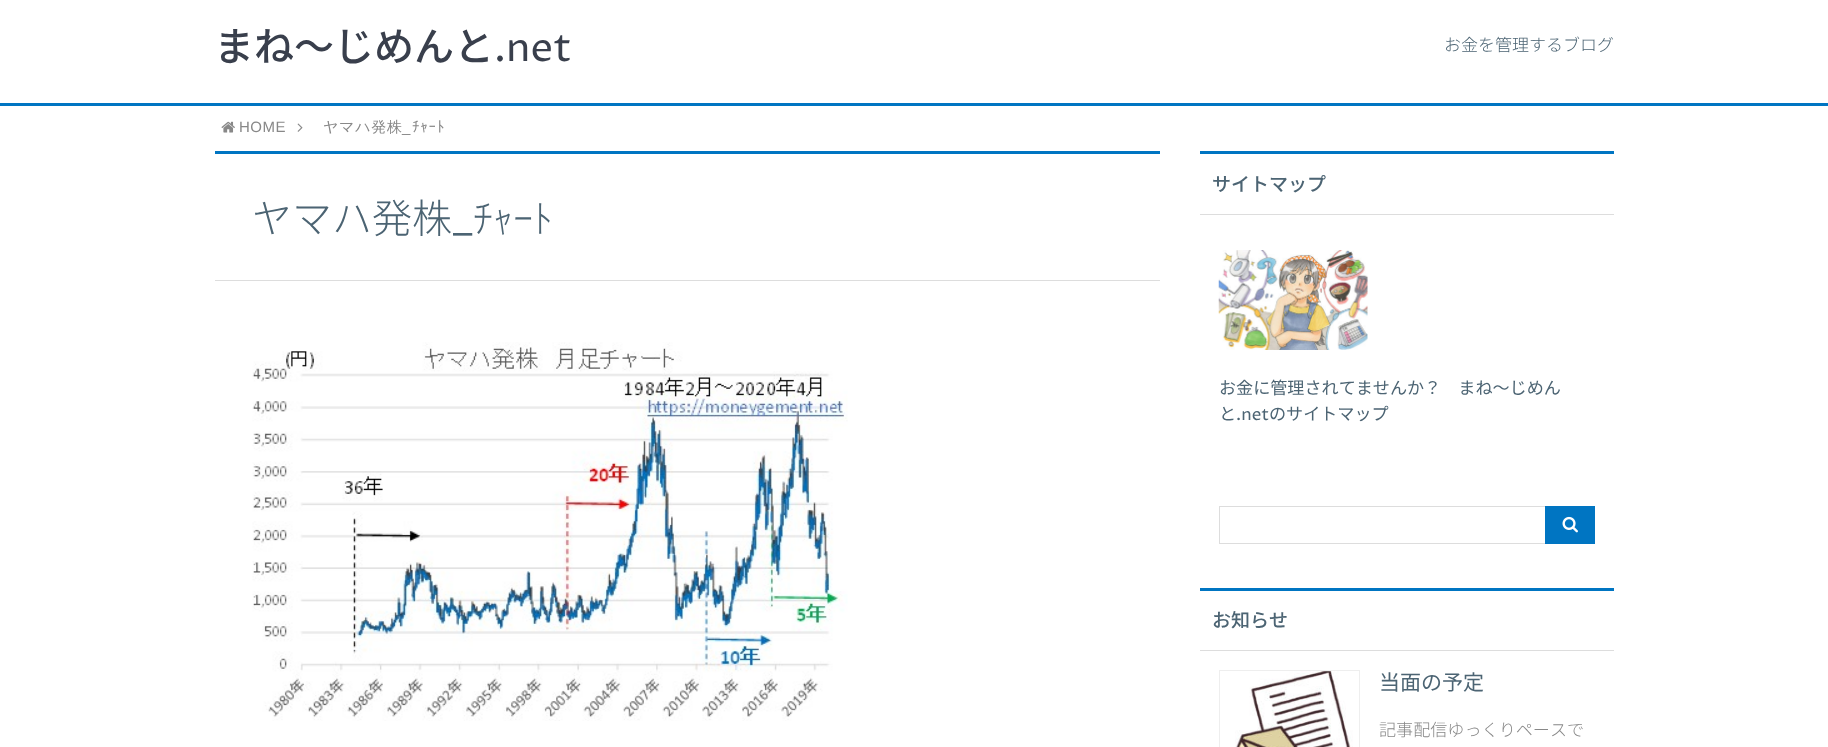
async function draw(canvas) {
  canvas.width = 1828
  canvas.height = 747
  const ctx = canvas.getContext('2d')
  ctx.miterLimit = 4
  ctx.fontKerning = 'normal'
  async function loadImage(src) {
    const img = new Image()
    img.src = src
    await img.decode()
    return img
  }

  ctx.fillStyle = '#fff'
  ctx.fillRect(0, 0, 1828, 747)
  ctx.fillStyle = '#0075c2'
  ctx.fillRect(0, 103, 1828, 3)
  ctx.font = '500 40px Noto Sans JP'
  ctx.fillStyle = '#393f4c'
  ctx.fillText('まね～じめんと', 214, 61)
  ctx.font = '40px Proza Libre'
  ctx.fillText('.net', 494, 61)
  ctx.font = '300 17px Noto Sans JP'
  ctx.fillStyle = '#4c6473'
  ctx.fillText('お金を管理するブログ', 1444, 51)
  ctx.drawImage(await loadImage('image0.png'), 221, 121, 14, 12)
  ctx.letterSpacing = '0.5px'
  ctx.font = '15px Liberation Sans'
  ctx.fillStyle = '#888'
  ctx.fillText('HOME', 239, 132)
  ctx.drawImage(await loadImage('image1.png'), 297, 123, 6, 9)
  ctx.letterSpacing = '0.75px'
  ctx.font = '500 15px WenQuanYi Zen Hei'
  ctx.fillText('ヤマハ発株', 323, 132)
  ctx.font = '15px IPAPGothic'
  ctx.fillText('ﾁｬｰﾄ', 412, 132)
  ctx.font = '15px Liberation Sans'
  ctx.fillText('_', 402, 132)
  ctx.fillStyle = '#ccc'
  ctx.filter = 'blur(0.5px)'
  ctx.beginPath()
  ctx.rect(215, 151, 945, 130)
  ctx.fill()
  ctx.filter = 'none'
  ctx.fillStyle = '#fff'
  ctx.fillRect(215, 154, 945, 126)
  ctx.fillStyle = '#0075c2'
  ctx.fillRect(215, 151, 945, 3)
  ctx.fillStyle = '#ddd'
  ctx.fillRect(215, 280, 945, 1)
  ctx.letterSpacing = '0px'
  ctx.font = '300 40px Noto Sans JP'
  ctx.fillStyle = '#4c6473'
  ctx.fillText('ヤマハ発株', 252, 233)
  ctx.font = '40px Proza Libre'
  ctx.fillText('_', 452, 233)
  ctx.font = '300 40px Noto Sans JP'
  ctx.fillText('ﾁｬｰﾄ', 473, 233)
  ctx.save()
  ctx.beginPath()
  ctx.moveTo(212, 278)
  ctx.lineTo(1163, 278)
  ctx.lineTo(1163, 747)
  ctx.lineTo(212, 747)
  ctx.closePath()
  ctx.moveTo(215, 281)
  ctx.lineTo(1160, 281)
  ctx.lineTo(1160, 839)
  ctx.lineTo(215, 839)
  ctx.closePath()
  ctx.clip('evenodd')
  ctx.fillStyle = '#ccc'
  ctx.filter = 'blur(0.5px)'
  ctx.beginPath()
  ctx.rect(215, 281, 945, 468)
  ctx.fill()
  ctx.filter = 'none'
  ctx.restore()
  ctx.fillStyle = '#ffffff99'
  ctx.fillRect(215, 281, 945, 1)
  ctx.drawImage(await loadImage('image2.png'), 252, 342, 596, 379)
  ctx.save()
  ctx.beginPath()
  ctx.moveTo(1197, 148)
  ctx.lineTo(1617, 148)
  ctx.lineTo(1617, 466)
  ctx.lineTo(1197, 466)
  ctx.closePath()
  ctx.moveTo(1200, 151)
  ctx.lineTo(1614, 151)
  ctx.lineTo(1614, 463)
  ctx.lineTo(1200, 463)
  ctx.closePath()
  ctx.clip('evenodd')
  ctx.fillStyle = '#ccc'
  ctx.filter = 'blur(0.5px)'
  ctx.beginPath()
  ctx.rect(1200, 151, 414, 312)
  ctx.fill()
  ctx.filter = 'none'
  ctx.restore()
  ctx.fillRect(1200, 215, 414, 248)
  ctx.fillStyle = '#ccc'
  ctx.filter = 'blur(0.5px)'
  ctx.beginPath()
  ctx.rect(1200, 151, 414, 64)
  ctx.fill()
  ctx.filter = 'none'
  ctx.fillStyle = '#fff'
  ctx.fillRect(1200, 154, 414, 60)
  ctx.fillStyle = '#0075c2'
  ctx.fillRect(1200, 151, 414, 3)
  ctx.fillStyle = '#ddd'
  ctx.fillRect(1200, 214, 414, 1)
  ctx.font = '500 19px Noto Sans JP'
  ctx.fillStyle = '#4c6473'
  ctx.fillText('サイトマップ', 1212, 191)
  ctx.drawImage(await loadImage('image3.png'), 1218, 250, 150, 100)
  ctx.font = '17.1px Noto Sans JP'
  ctx.fillText('お金に管理されてませんか？　まね～じめん', 1219, 394)
  ctx.fillText('と', 1219, 420)
  ctx.font = '17.1px Proza Libre'
  ctx.fillText('.net', 1236, 420)
  ctx.font = '17.1px Noto Sans JP'
  ctx.fillText('のサイトマップ', 1269, 420)
  ctx.save()
  ctx.beginPath()
  ctx.moveTo(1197, 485)
  ctx.lineTo(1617, 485)
  ctx.lineTo(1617, 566)
  ctx.lineTo(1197, 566)
  ctx.closePath()
  ctx.moveTo(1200, 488)
  ctx.lineTo(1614, 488)
  ctx.lineTo(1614, 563)
  ctx.lineTo(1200, 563)
  ctx.closePath()
  ctx.clip('evenodd')
  ctx.fillStyle = '#ccc'
  ctx.filter = 'blur(0.5px)'
  ctx.beginPath()
  ctx.rect(1200, 488, 414, 75)
  ctx.fill()
  ctx.filter = 'none'
  ctx.restore()
  ctx.fillStyle = '#ffffff99'
  ctx.fillRect(1200, 488, 414, 75)
  ctx.strokeStyle = '#ddd'
  ctx.strokeRect(1219.5, 506.5, 375, 37)
  ctx.fillStyle = '#0075c2'
  ctx.fillRect(1545, 506, 50, 38)
  ctx.drawImage(await loadImage('image4.png'), 1562, 516, 16, 17)
  ctx.save()
  ctx.beginPath()
  ctx.moveTo(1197, 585)
  ctx.lineTo(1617, 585)
  ctx.lineTo(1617, 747)
  ctx.lineTo(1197, 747)
  ctx.closePath()
  ctx.moveTo(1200, 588)
  ctx.lineTo(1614, 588)
  ctx.lineTo(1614, 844)
  ctx.lineTo(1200, 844)
  ctx.closePath()
  ctx.clip('evenodd')
  ctx.fillStyle = '#ccc'
  ctx.filter = 'blur(0.5px)'
  ctx.beginPath()
  ctx.rect(1200, 588, 414, 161)
  ctx.fill()
  ctx.filter = 'none'
  ctx.restore()
  ctx.fillStyle = '#ffffff99'
  ctx.fillRect(1613, 651, 1, 96)
  ctx.fillStyle = '#ccc'
  ctx.filter = 'blur(0.5px)'
  ctx.beginPath()
  ctx.rect(1200, 588, 414, 63)
  ctx.fill()
  ctx.filter = 'none'
  ctx.fillStyle = '#fff'
  ctx.fillRect(1200, 591, 414, 59)
  ctx.fillStyle = '#0075c2'
  ctx.fillRect(1200, 588, 414, 3)
  ctx.fillStyle = '#ddd'
  ctx.fillRect(1200, 650, 414, 1)
  ctx.font = '500 19px Noto Sans JP'
  ctx.fillStyle = '#4c6473'
  ctx.fillText('お知らせ', 1212, 627)
  ctx.strokeStyle = '#eee'
  ctx.strokeRect(1219.5, 670.5, 140, 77)
  ctx.drawImage(await loadImage('image5.png'), 1235, 671, 118, 76)
  ctx.font = '21px Noto Sans JP'
  ctx.fillText('当面の予定', 1379, 690)
  ctx.font = '300 17.1px Noto Sans JP'
  ctx.fillStyle = '#888'
  ctx.fillText('記事配信ゆっくりペースで', 1379, 736)
}

draw(document.querySelector('canvas'))
